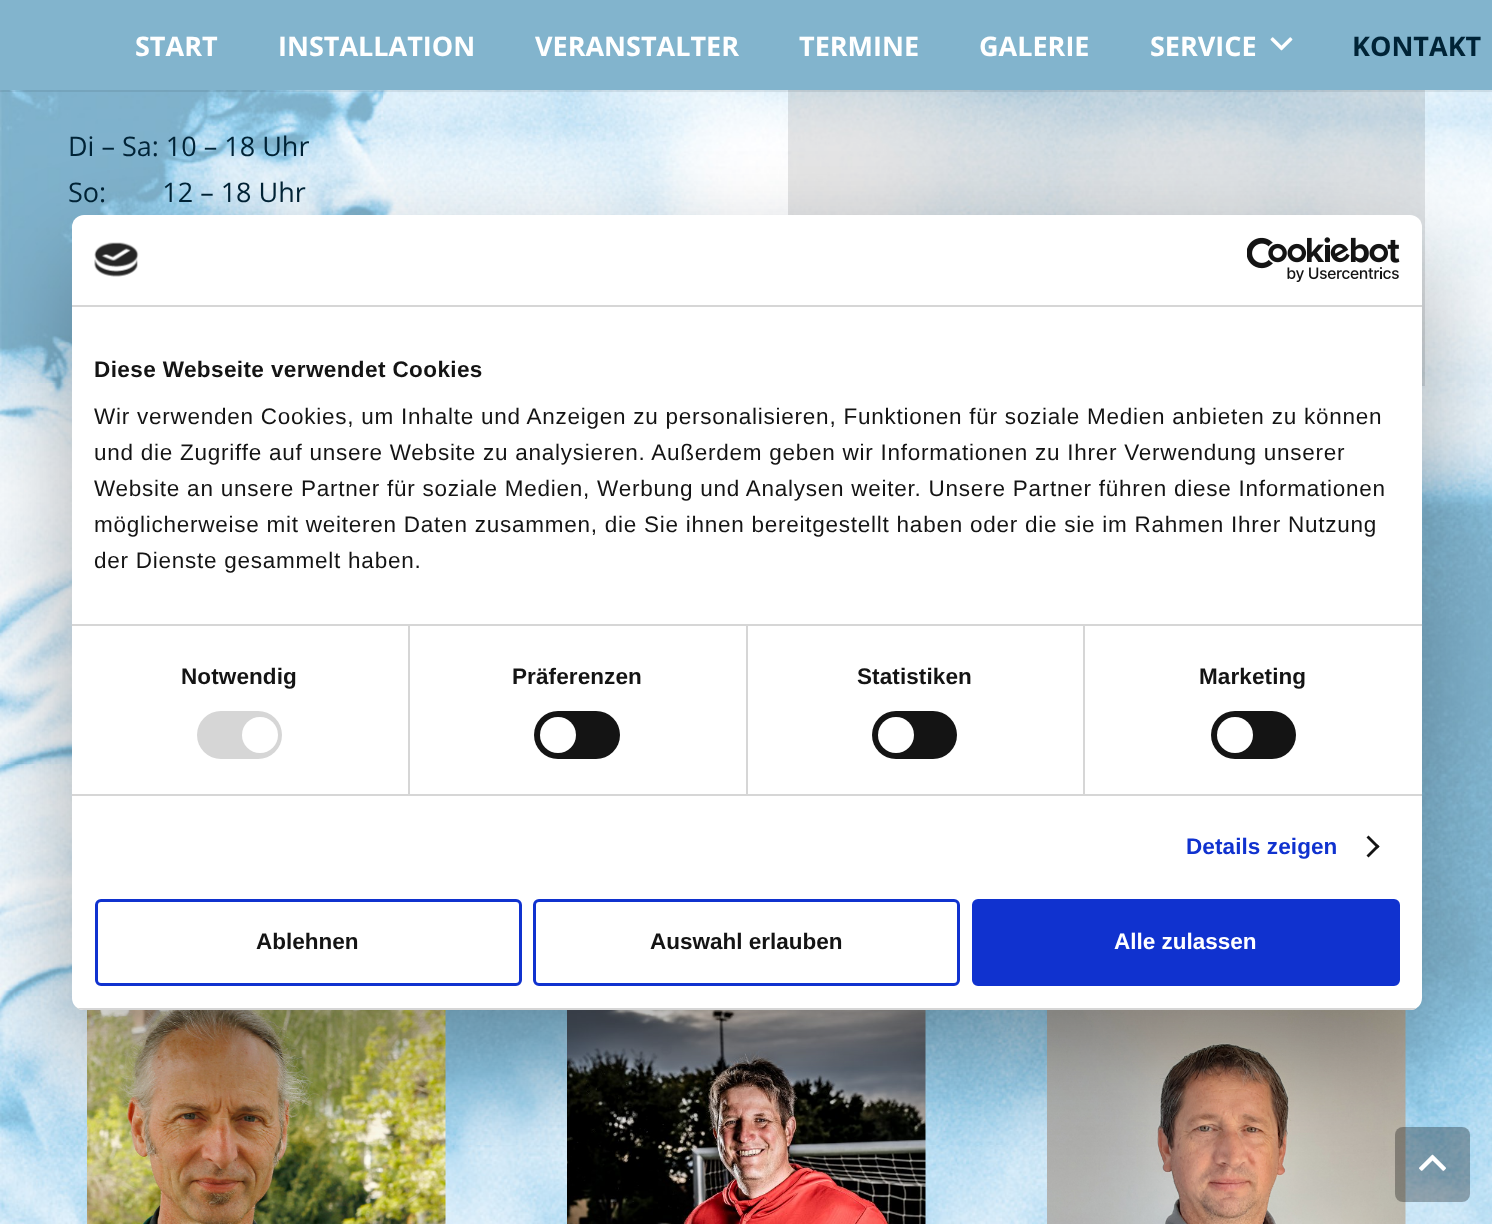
async function draw(canvas) {
  canvas.width = 1492
  canvas.height = 1224
  const ctx = canvas.getContext('2d')
  ctx.miterLimit = 4
  ctx.fontKerning = 'normal'
  async function loadImage(src) {
    const img = new Image()
    img.src = src
    await img.decode()
    return img
  }

  ctx.fillStyle = '#fff'
  ctx.fillRect(0, 0, 1492, 1224)
  ctx.drawImage(await loadImage('image1.png'), 0, 90, 1492, 529)
  ctx.fillStyle = '#0000001a'
  ctx.fillRect(788, 90, 637, 296)
  ctx.fillStyle = '#00000014'
  ctx.beginPath()
  ctx.moveTo(0, 90)
  ctx.lineTo(0, 92)
  ctx.lineTo(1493, 92)
  ctx.lineTo(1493, 2)
  ctx.lineTo(1492, 2)
  ctx.lineTo(1492, 90)
  ctx.closePath()
  ctx.fill()
  ctx.fillStyle = '#82b4cd'
  ctx.fillRect(0, 0, 1492, 90)
  ctx.font = 'bold 27px Open Sans'
  ctx.fillStyle = '#fff'
  ctx.fillText('START', 135, 56)
  ctx.fillText('INSTALLATION', 278, 56)
  ctx.fillText('VERANSTALTER', 535, 56)
  ctx.fillText('TERMINE', 799, 56)
  ctx.fillText('GALERIE', 979, 56)
  ctx.fillText('SERVICE', 1150, 56)
  ctx.drawImage(await loadImage('image0.png'), 1270, 37, 23, 14)
  ctx.fillStyle = '#002336'
  ctx.fillText('KONTAKT', 1352, 56)
  ctx.font = '27px Open Sans'
  ctx.fillText('Di – Sa: 10 – 18 Uhr', 68, 156)
  ctx.fillText('So:        12 – 18 Uhr', 68, 202)
  ctx.drawImage(await loadImage('image2.png'), 0, 619, 1492, 605)
  ctx.drawImage(await loadImage('image3.png'), 87, 1010, 359, 214)
  ctx.drawImage(await loadImage('image4.png'), 567, 1010, 359, 214)
  ctx.drawImage(await loadImage('image5.png'), 1047, 1010, 359, 214)
  ctx.fillStyle = '#0000004d'
  ctx.beginPath()
  ctx.roundRect(1395, 1127, 75, 75, 8)
  ctx.fill()
  ctx.drawImage(await loadImage('image8.png'), 1419, 1154, 27, 17)
  ctx.filter = 'blur(51px)'
  ctx.beginPath()
  ctx.roundRect(72, 263, 1350, 795, 12)
  ctx.fill()
  ctx.filter = 'none'
  ctx.fillStyle = '#fff'
  ctx.beginPath()
  ctx.roundRect(72, 215, 1350, 795, 12)
  ctx.fill()
  ctx.fillStyle = '#d6d6d6'
  ctx.fillRect(72, 305, 1350, 2)
  ctx.drawImage(await loadImage('image6.png'), 94, 242, 45, 35)
  ctx.drawImage(await loadImage('image7.png'), 1247, 237, 153, 45)
  ctx.fillRect(72, 624, 1350, 2)
  ctx.letterSpacing = '0.4px'
  ctx.font = 'bold 22.5px Liberation Sans'
  ctx.fillStyle = '#141414'
  ctx.fillText('Diese Webseite verwendet Cookies', 94, 377)
  ctx.letterSpacing = '0.75px'
  ctx.font = '22.5px Liberation Sans'
  ctx.fillText('Wir verwenden Cookies, um Inhalte und Anzeigen zu personalisieren, Funktionen für soziale Medien anbieten zu können', 94, 424)
  ctx.fillText('und die Zugriffe auf unsere Website zu analysieren. Außerdem geben wir Informationen zu Ihrer Verwendung unserer', 94, 460)
  ctx.fillText('Website an unsere Partner für soziale Medien, Werbung und Analysen weiter. Unsere Partner führen diese Informationen', 94, 496)
  ctx.fillText('möglicherweise mit weiteren Daten zusammen, die Sie ihnen bereitgestellt haben oder die sie im Rahmen Ihrer Nutzung', 94, 532)
  ctx.fillText('der Dienste gesammelt haben.', 94, 568)
  ctx.fillStyle = '#d6d6d6'
  ctx.fillRect(72, 794, 1350, 2)
  ctx.fillRect(408, 626, 2, 168)
  ctx.letterSpacing = '0.1px'
  ctx.font = 'bold 22.5px Liberation Sans'
  ctx.fillStyle = '#141414'
  ctx.fillText('Notwendig', 181, 684)
  ctx.fillStyle = '#d6d6d6'
  ctx.beginPath()
  ctx.roundRect(197, 711, 85, 48, 24)
  ctx.fill()
  ctx.fillStyle = '#fff'
  ctx.beginPath()
  ctx.arc(260, 735, 18, 0, 2 * Math.PI)
  ctx.fill()
  ctx.fillStyle = '#d6d6d6'
  ctx.fillRect(746, 626, 2, 168)
  ctx.fillStyle = '#141414'
  ctx.fillText('Präferenzen', 512, 684)
  ctx.beginPath()
  ctx.roundRect(534, 711, 86, 48, 24)
  ctx.fill()
  ctx.fillStyle = '#fff'
  ctx.beginPath()
  ctx.arc(558, 735, 18, 0, 2 * Math.PI)
  ctx.fill()
  ctx.fillStyle = '#d6d6d6'
  ctx.fillRect(1083, 626, 2, 168)
  ctx.fillStyle = '#141414'
  ctx.fillText('Statistiken', 857, 684)
  ctx.beginPath()
  ctx.roundRect(872, 711, 85, 48, 24)
  ctx.fill()
  ctx.fillStyle = '#fff'
  ctx.beginPath()
  ctx.arc(896, 735, 18, 0, 2 * Math.PI)
  ctx.fill()
  ctx.fillStyle = '#141414'
  ctx.fillText('Marketing', 1199, 684)
  ctx.beginPath()
  ctx.roundRect(1211, 711, 85, 48, 24)
  ctx.fill()
  ctx.fillStyle = '#fff'
  ctx.beginPath()
  ctx.arc(1235, 735, 18, 0, 2 * Math.PI)
  ctx.fill()
  ctx.fillStyle = '#1032cf'
  ctx.fillText('Details zeigen', 1186, 854)
  ctx.fillStyle = '#141414'
  ctx.beginPath()
  ctx.moveTo(1368.5, 835.5)
  ctx.lineTo(1379.5, 846.5)
  ctx.lineTo(1377.5, 848.5)
  ctx.lineTo(1366.5, 837.5)
  ctx.closePath()
  ctx.fill()
  ctx.beginPath()
  ctx.moveTo(1377.5, 844.5)
  ctx.lineTo(1379.5, 846.5)
  ctx.lineTo(1368.5, 857.5)
  ctx.lineTo(1366.5, 855.5)
  ctx.closePath()
  ctx.fill()
  ctx.save()
  ctx.beginPath()
  ctx.roundRect(72, 215, 1350, 795, 12)
  ctx.clip()
  ctx.fillStyle = '#d6d6d6'
  ctx.fillRect(72, 1008, 1350, 2)
  ctx.restore()
  ctx.beginPath()
  ctx.roundRect(96.5, 900.5, 424, 84, 4.5)
  ctx.strokeStyle = '#1032cf'
  ctx.lineWidth = 3
  ctx.stroke()
  ctx.letterSpacing = '0px'
  ctx.fillText('Ablehnen', 256, 949)
  ctx.beginPath()
  ctx.roundRect(534.5, 900.5, 424, 84, 4.5)
  ctx.stroke()
  ctx.fillText('Auswahl erlauben', 650, 949)
  ctx.fillStyle = '#1032cf'
  ctx.beginPath()
  ctx.roundRect(973.5, 900.5, 425, 84, 4.5)
  ctx.fill()
  ctx.stroke()
  ctx.fillStyle = '#fff'
  ctx.fillText('Alle zulassen', 1114, 949)
}

draw(document.querySelector('canvas'))
